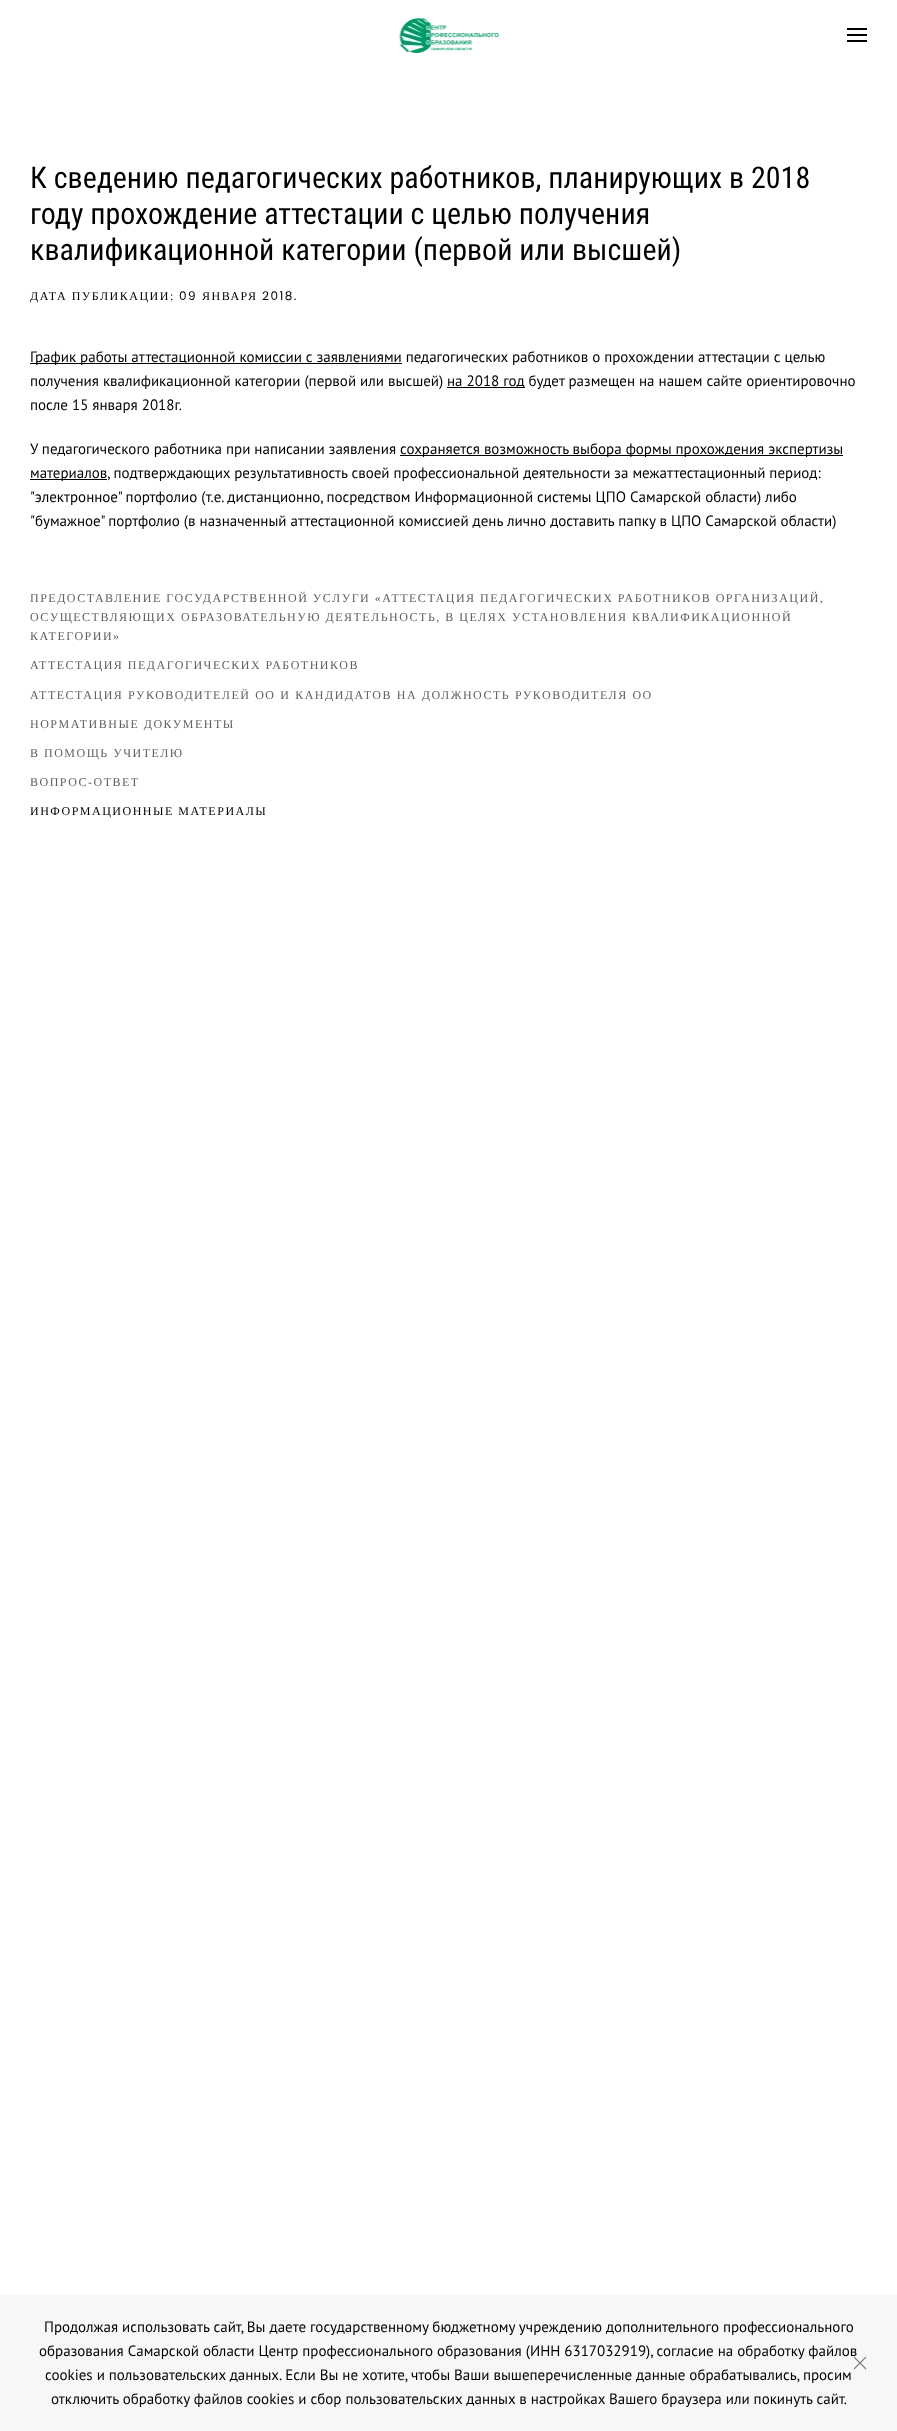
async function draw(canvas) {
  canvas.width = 897
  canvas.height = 2431
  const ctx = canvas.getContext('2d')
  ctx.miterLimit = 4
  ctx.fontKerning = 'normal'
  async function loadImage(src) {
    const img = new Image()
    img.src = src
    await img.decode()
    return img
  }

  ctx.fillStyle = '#fff'
  ctx.fillRect(0, 0, 897, 2431)
  ctx.drawImage(await loadImage('image0.png'), 399, 18, 100, 35)
  ctx.fillStyle = '#000'
  ctx.fillRect(847, 28, 20, 2)
  ctx.fillRect(847, 34, 20, 2)
  ctx.fillRect(847, 40, 20, 2)
  ctx.font = '30px Roboto Condensed'
  ctx.fillText('К сведению педагогических работников, планирующих в 2018', 30, 188)
  ctx.fillText('году прохождение аттестации с целью получения', 30, 224)
  ctx.fillText('квалификационной категории (первой или высшей)', 30, 260)
  ctx.letterSpacing = '1.5px'
  ctx.font = '12px Liberation Serif'
  ctx.fillText('ДАТА ПУБЛИКАЦИИ:', 30, 300)
  ctx.font = '12px Poppins'
  ctx.fillText('09', 179, 300)
  ctx.font = '12px Liberation Serif'
  ctx.fillText('ЯНВАРЯ', 202, 300)
  ctx.font = '12px Poppins'
  ctx.fillText('2018.', 262, 300)
  ctx.fillRect(30, 363, 372, 1)
  ctx.letterSpacing = '0px'
  ctx.font = '15px PT Sans'
  ctx.fillText('График работы аттестационной комиссии с заявлениями педагогических работников о прохождении аттестации с целью', 30, 362)
  ctx.fillText('получения квалификационной категории (первой или высшей)', 30, 386)
  ctx.fillRect(447, 387, 78, 1)
  ctx.fillText('на 2018 год будет размещен на нашем сайте ориентировочно', 447, 386)
  ctx.fillText('после 15 января 2018г.', 30, 410)
  ctx.fillText('У педагогического работника при написании заявления', 30, 454)
  ctx.fillRect(400, 455, 443, 1)
  ctx.fillText('сохраняется возможность выбора формы прохождения экспертизы', 400, 454)
  ctx.fillRect(30, 479, 77, 1)
  ctx.fillText('материалов, подтверждающих результативность своей профессиональной деятельности за межаттестационный период:', 30, 478)
  ctx.fillText('"электронное" портфолио (т.е. дистанционно, посредством Информационной системы ЦПО Самарской области) либо', 30, 502)
  ctx.fillText('"бумажное" портфолио (в назначенный аттестационной комиссией день лично доставить папку в ЦПО Самарской области)', 30, 526)
  ctx.letterSpacing = '1.5px'
  ctx.font = '12px Liberation Serif'
  ctx.fillStyle = '#606060'
  ctx.fillText('ПРЕДОСТАВЛЕНИЕ ГОСУДАРСТВЕННОЙ УСЛУГИ «АТТЕСТАЦИЯ ПЕДАГОГИЧЕСКИХ РАБОТНИКОВ ОРГАНИЗАЦИЙ,', 30, 602)
  ctx.fillText('ОСУЩЕСТВЛЯЮЩИХ ОБРАЗОВАТЕЛЬНУЮ ДЕЯТЕЛЬНОСТЬ, В ЦЕЛЯХ УСТАНОВЛЕНИЯ КВАЛИФИКАЦИОННОЙ', 30, 621)
  ctx.fillText('КАТЕГОРИИ»', 30, 640)
  ctx.fillText('АТТЕСТАЦИЯ ПЕДАГОГИЧЕСКИХ РАБОТНИКОВ', 30, 669)
  ctx.wordSpacing = '0.25px'
  ctx.fillText('АТТЕСТАЦИЯ РУКОВОДИТЕЛЕЙ ОО И КАНДИДАТОВ НА ДОЛЖНОСТЬ РУКОВОДИТЕЛЯ ОО', 30, 699)
  ctx.wordSpacing = '0px'
  ctx.fillText('НОРМАТИВНЫЕ ДОКУМЕНТЫ', 30, 728)
  ctx.fillText('В ПОМОЩЬ УЧИТЕЛЮ', 30, 757)
  ctx.fillText('ВОПРОС-ОТВЕТ', 30, 786)
  ctx.fillStyle = '#000'
  ctx.fillText('ИНФОРМАЦИОННЫЕ МАТЕРИАЛЫ', 30, 815)
  ctx.fillStyle = '#f5f8f6'
  ctx.fillRect(0, 2295, 897, 136)
  ctx.letterSpacing = '0px'
  ctx.font = '15px PT Sans'
  ctx.fillStyle = '#000'
  ctx.fillText('Продолжая использовать сайт, Вы даете государственному бюджетному учреждению дополнительного профессионального', 44, 2332)
  ctx.fillText('образования Самарской области Центр профессионального образования (ИНН 6317032919), согласие на обработку файлов', 39, 2356)
  ctx.beginPath()
  ctx.moveTo(854, 2357)
  ctx.lineTo(866, 2369)
  ctx.moveTo(866, 2357)
  ctx.lineTo(854, 2369)
  ctx.strokeStyle = '#7e7e7e'
  ctx.lineWidth = 1.1
  ctx.stroke()
  ctx.fillText('cookies и пользовательских данных. Если Вы не хотите, чтобы Ваши вышеперечисленные данные обрабатывались, просим', 45, 2380)
  ctx.fillText('отключить обработку файлов cookies и сбор пользовательских данных в настройках Вашего браузера или покинуть сайт.', 51, 2404)
}

draw(document.querySelector('canvas'))
